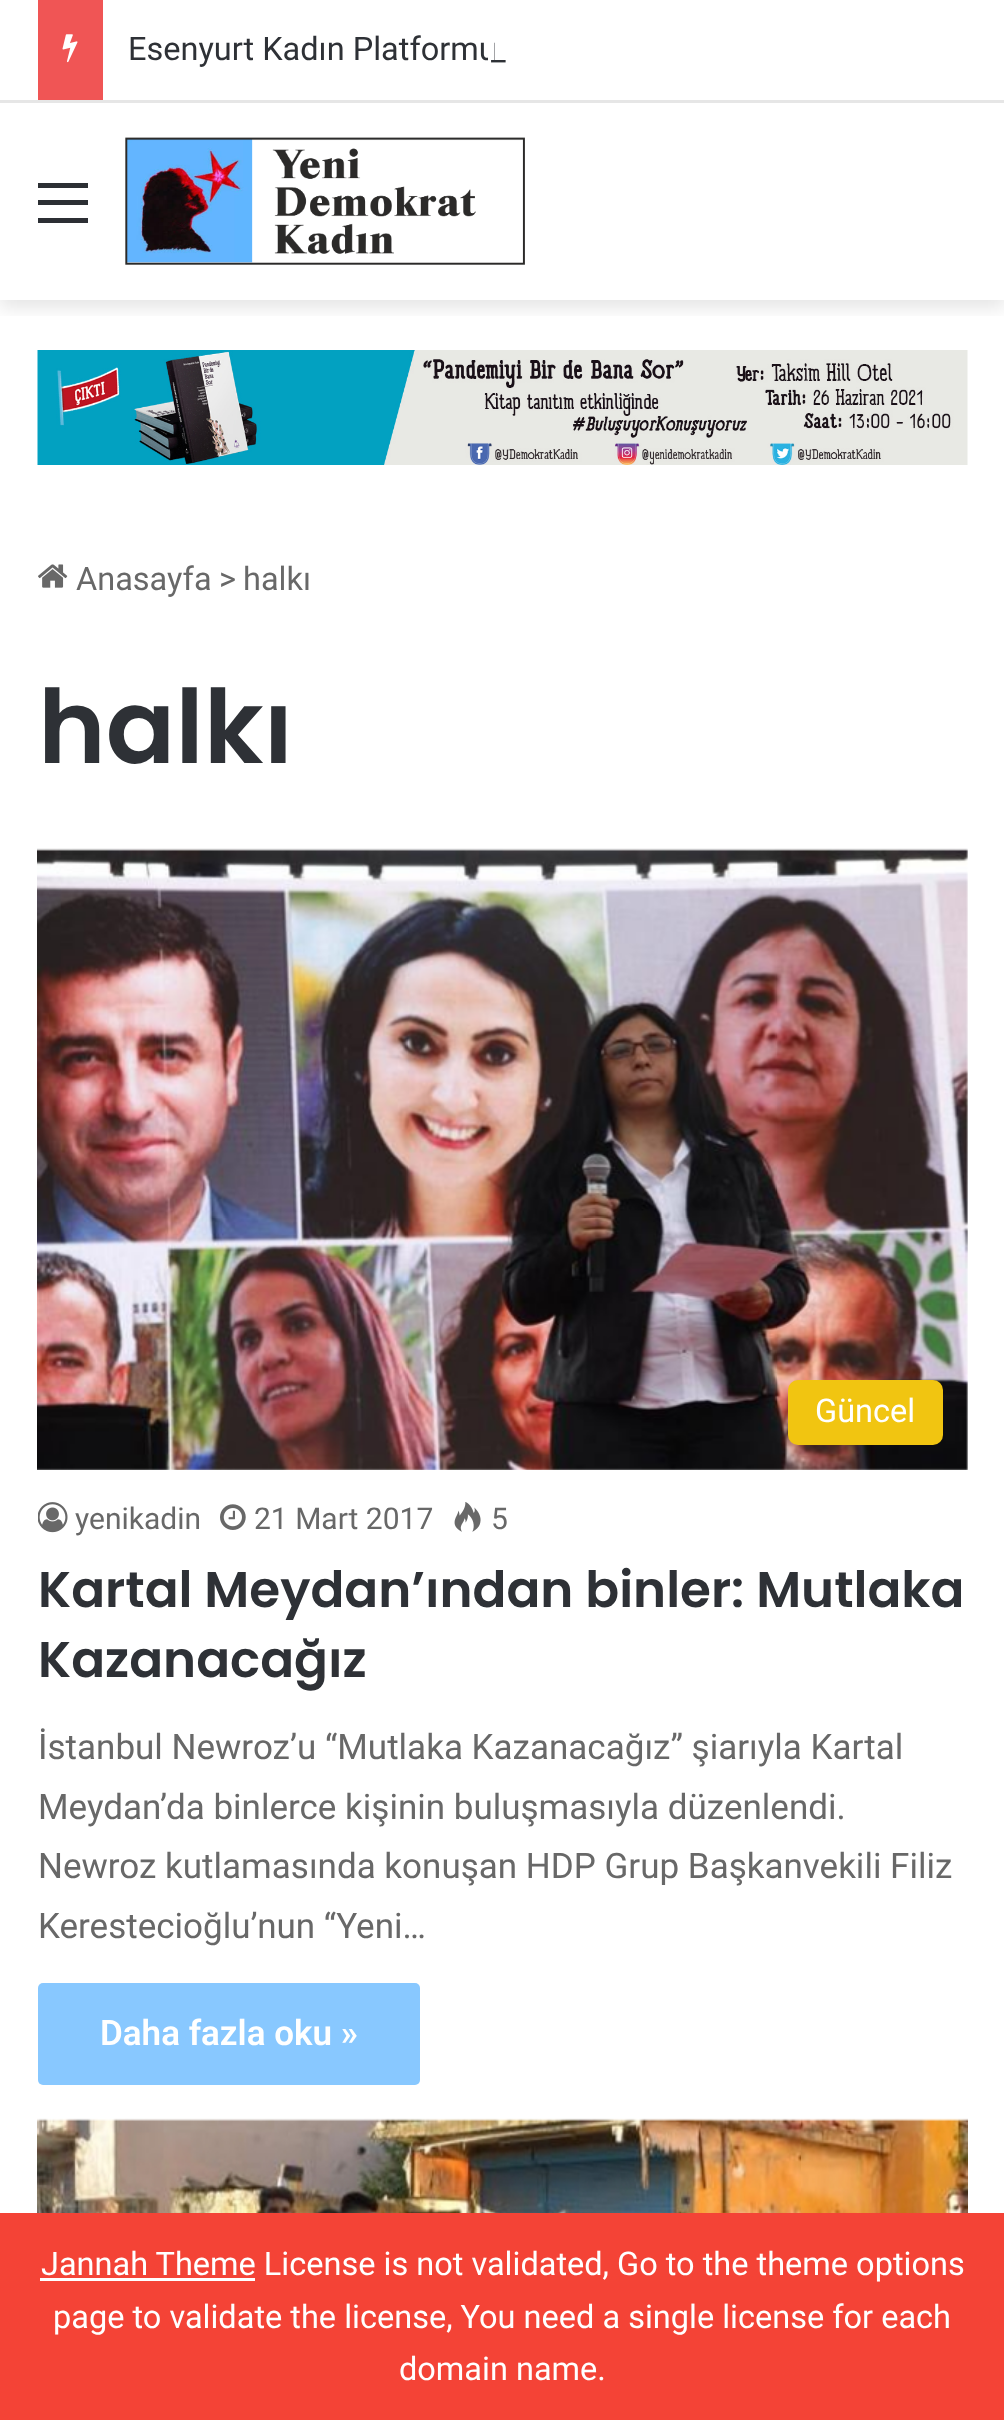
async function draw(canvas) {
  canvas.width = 1004
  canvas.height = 2420
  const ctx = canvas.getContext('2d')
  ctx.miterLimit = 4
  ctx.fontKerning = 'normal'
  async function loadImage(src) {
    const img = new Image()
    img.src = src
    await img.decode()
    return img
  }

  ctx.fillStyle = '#fff'
  ctx.fillRect(0, 0, 1004, 2420)
  ctx.save()
  ctx.beginPath()
  ctx.rect(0, 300, 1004, 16)
  ctx.clip()
  ctx.fillStyle = '#0000001a'
  ctx.filter = 'blur(9px)'
  ctx.beginPath()
  ctx.rect(0, 110, 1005, 198)
  ctx.fill()
  ctx.filter = 'none'
  ctx.restore()
  ctx.fillRect(8, 98, 989, 2)
  ctx.fillStyle = '#e6e6e6'
  ctx.fillRect(0, 100, 1004, 3)
  ctx.fillStyle = '#f05555'
  ctx.fillRect(38, 0, 65, 100)
  ctx.drawImage(await loadImage('image0.png'), 62, 34, 16, 29)
  ctx.font = '32.5px Roboto'
  ctx.fillStyle = '#2e3136'
  ctx.fillText('Esenyurt Kadın Platformu', 128, 60)
  ctx.fillStyle = '#fff'
  ctx.fillRect(488, 42, 6, 19)
  ctx.fillStyle = '#2e3136'
  ctx.fillText('_', 491, 60)
  ctx.fillStyle = '#2c2f34'
  ctx.fillRect(38, 200, 50, 5)
  ctx.fillRect(38, 183, 50, 5)
  ctx.fillRect(38, 218, 50, 5)
  ctx.drawImage(await loadImage('image1.png'), 125, 137, 400, 128)
  ctx.drawImage(await loadImage('image2.png'), 37, 350, 931, 115)
  ctx.drawImage(await loadImage('image3.png'), 38, 564, 30, 24)
  ctx.fillStyle = '#686868'
  ctx.fillText('Anasayfa', 76, 590)
  ctx.fillText('>', 219, 590)
  ctx.fillText('halkı', 243, 590)
  ctx.font = '600 102.5px Poppins'
  ctx.fillStyle = '#2e3136'
  ctx.fillText('halkı', 38, 763)
  ctx.drawImage(await loadImage('image4.png'), 37, 848, 931, 622)
  ctx.fillStyle = '#f1c511'
  ctx.beginPath()
  ctx.roundRect(788, 1380, 155, 65, 10)
  ctx.fill()
  ctx.font = '32.5px Roboto'
  ctx.fillStyle = '#fff'
  ctx.fillText('Güncel', 815, 1422)
  ctx.drawImage(await loadImage('image5.png'), 38, 1502, 30, 31)
  ctx.font = '30px Roboto'
  ctx.fillStyle = '#686868'
  ctx.fillText('yenikadin', 75, 1529)
  ctx.drawImage(await loadImage('image6.png'), 220, 1504, 26, 26)
  ctx.fillText('21 Mart 2017', 254, 1529)
  ctx.drawImage(await loadImage('image7.png'), 454, 1502, 27, 30)
  ctx.fillText('5', 491, 1529)
  ctx.font = '600 50px Poppins'
  ctx.fillStyle = '#2e3136'
  ctx.fillText('Kartal Meydan’ından binler: Mutlaka', 38, 1607)
  ctx.fillText('Kazanacağız', 38, 1677)
  ctx.font = '35px Roboto'
  ctx.fillStyle = '#686868'
  ctx.fillText('İstanbul Newroz’u “Mutlaka Kazanacağız” şiarıyla Kartal', 38, 1759)
  ctx.fillText('Meydan’da binlerce kişinin buluşmasıyla düzenlendi.', 38, 1819)
  ctx.fillText('Newroz kutlamasında konuşan HDP Grup Başkanvekili Filiz', 38, 1878)
  ctx.fillText('Kerestecioğlu’nun “Yeni…', 38, 1938)
  ctx.fillStyle = '#88c8ff'
  ctx.beginPath()
  ctx.roundRect(38, 1983, 382, 102, 5)
  ctx.fill()
  ctx.font = '600 35px Roboto'
  ctx.fillStyle = '#fff'
  ctx.fillText('Daha fazla oku »', 100, 2045)
  ctx.drawImage(await loadImage('image8.png'), 37, 2118, 931, 95)
  ctx.fillStyle = '#f44336'
  ctx.fillRect(0, 2213, 1004, 207)
  ctx.fillStyle = '#fff'
  ctx.fillRect(40, 2278, 215, 3)
  ctx.font = '32.5px Roboto'
  ctx.fillText('Jannah Theme License is not validated, Go to the theme options', 41, 2275)
  ctx.fillText('page to validate the license, You need a single license for each', 53, 2328)
  ctx.fillText('domain name.', 399, 2380)
}

draw(document.querySelector('canvas'))
